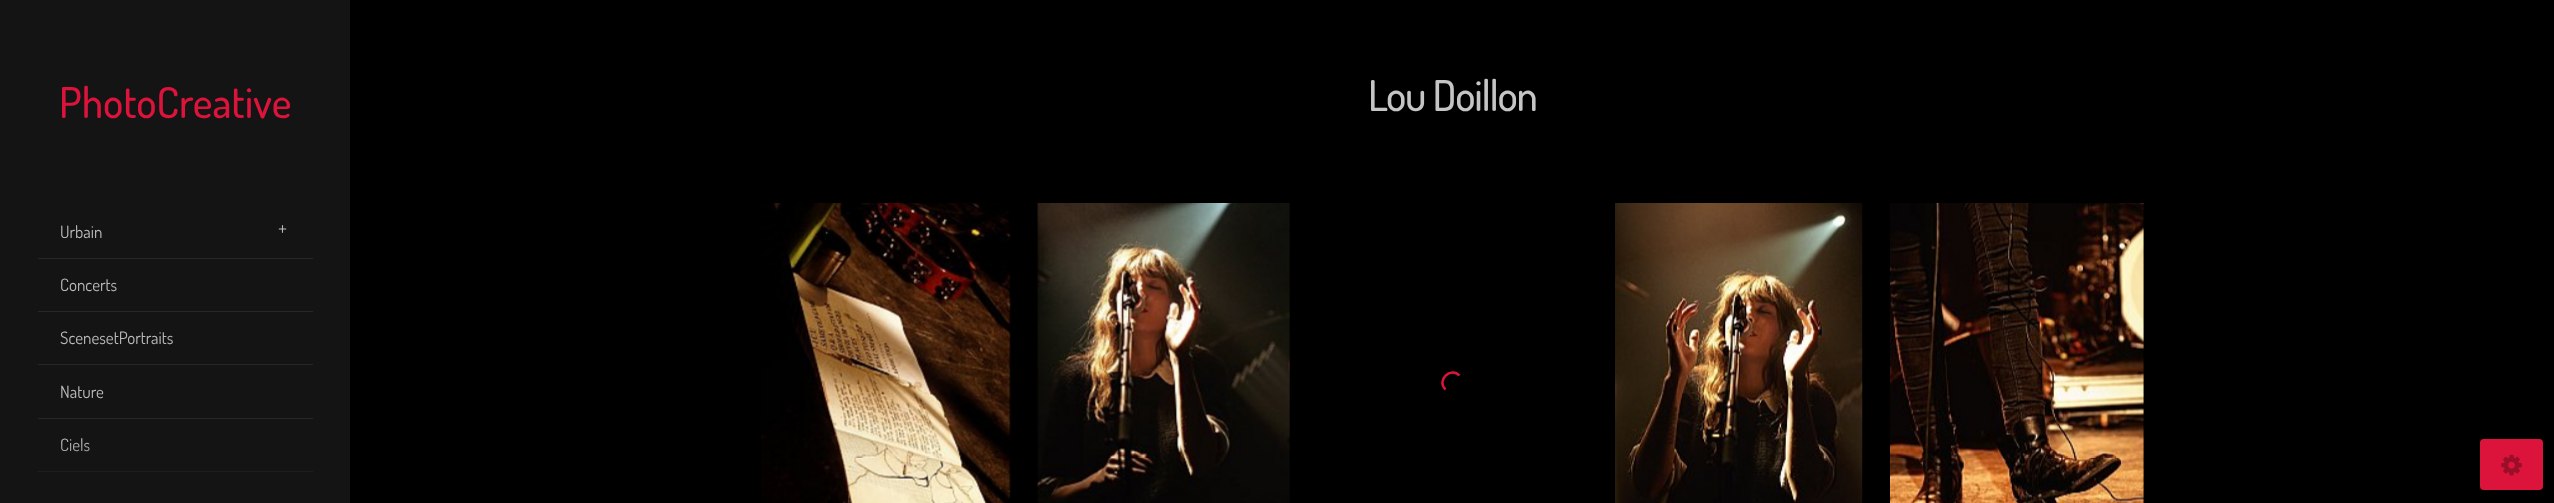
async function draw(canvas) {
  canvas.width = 2554
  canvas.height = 503
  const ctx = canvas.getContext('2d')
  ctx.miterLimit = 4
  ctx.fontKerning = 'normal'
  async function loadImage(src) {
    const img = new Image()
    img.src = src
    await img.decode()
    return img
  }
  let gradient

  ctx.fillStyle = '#000'
  ctx.fillRect(0, 0, 2554, 503)
  ctx.fillStyle = '#141414'
  ctx.fillRect(0, 0, 350, 503)
  ctx.font = '500 42.5px Dosis'
  ctx.fillStyle = '#dc143c'
  ctx.fillText('PhotoCreative', 59, 118)
  ctx.fillStyle = '#272727'
  ctx.fillRect(38, 258, 275, 1)
  ctx.font = '17px Dosis'
  ctx.fillStyle = '#bbb'
  ctx.fillText('Urbain', 60, 238)
  ctx.font = '15px Liberation Mono'
  ctx.fillText('+', 278, 234)
  ctx.fillStyle = '#272727'
  ctx.fillRect(38, 311, 275, 1)
  ctx.font = '17px Dosis'
  ctx.fillStyle = '#bbb'
  ctx.fillText('Concerts', 60, 291)
  ctx.fillStyle = '#272727'
  ctx.fillRect(38, 364, 275, 1)
  ctx.fillStyle = '#bbb'
  ctx.fillText('ScenesetPortraits', 60, 344)
  ctx.fillStyle = '#272727'
  ctx.fillRect(38, 418, 275, 1)
  ctx.fillStyle = '#bbb'
  ctx.fillText('Nature', 60, 398)
  ctx.fillStyle = '#272727'
  ctx.fillRect(38, 471, 275, 1)
  ctx.fillStyle = '#bbb'
  ctx.fillText('Ciels', 60, 451)
  gradient = ctx.createLinearGradient(175, 441, 175, 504)
  gradient.addColorStop(0, '#14141400')
  gradient.addColorStop(1, '#141414')
  ctx.fillStyle = gradient
  ctx.fillRect(38, 442, 275, 30)
  ctx.letterSpacing = '-1.25px'
  ctx.font = '500 42.5px Dosis'
  ctx.fillStyle = '#c5c5c5'
  ctx.fillText('Lou Doillon', 1368, 111)
  ctx.drawImage(await loadImage('image0.png'), 761, 203, 250, 300)
  ctx.drawImage(await loadImage('image1.png'), 1037, 203, 253, 300)
  ctx.beginPath()
  ctx.moveTo(1445.5, 389.5)
  ctx.bezierCurveTo(1436, 380.5, 1450.5, 366, 1459.5, 375.5)
  ctx.strokeStyle = '#dc143c'
  ctx.lineWidth = 2.5
  ctx.stroke()
  ctx.drawImage(await loadImage('image2.png'), 1615, 203, 248, 300)
  ctx.drawImage(await loadImage('image3.png'), 1890, 203, 254, 300)
  ctx.fillStyle = '#dc143c'
  ctx.beginPath()
  ctx.roundRect(2480, 439, 63, 51, 4)
  ctx.fill()
  ctx.drawImage(await loadImage('image4.png'), 2501, 454, 21, 22)
}

draw(document.querySelector('canvas'))
